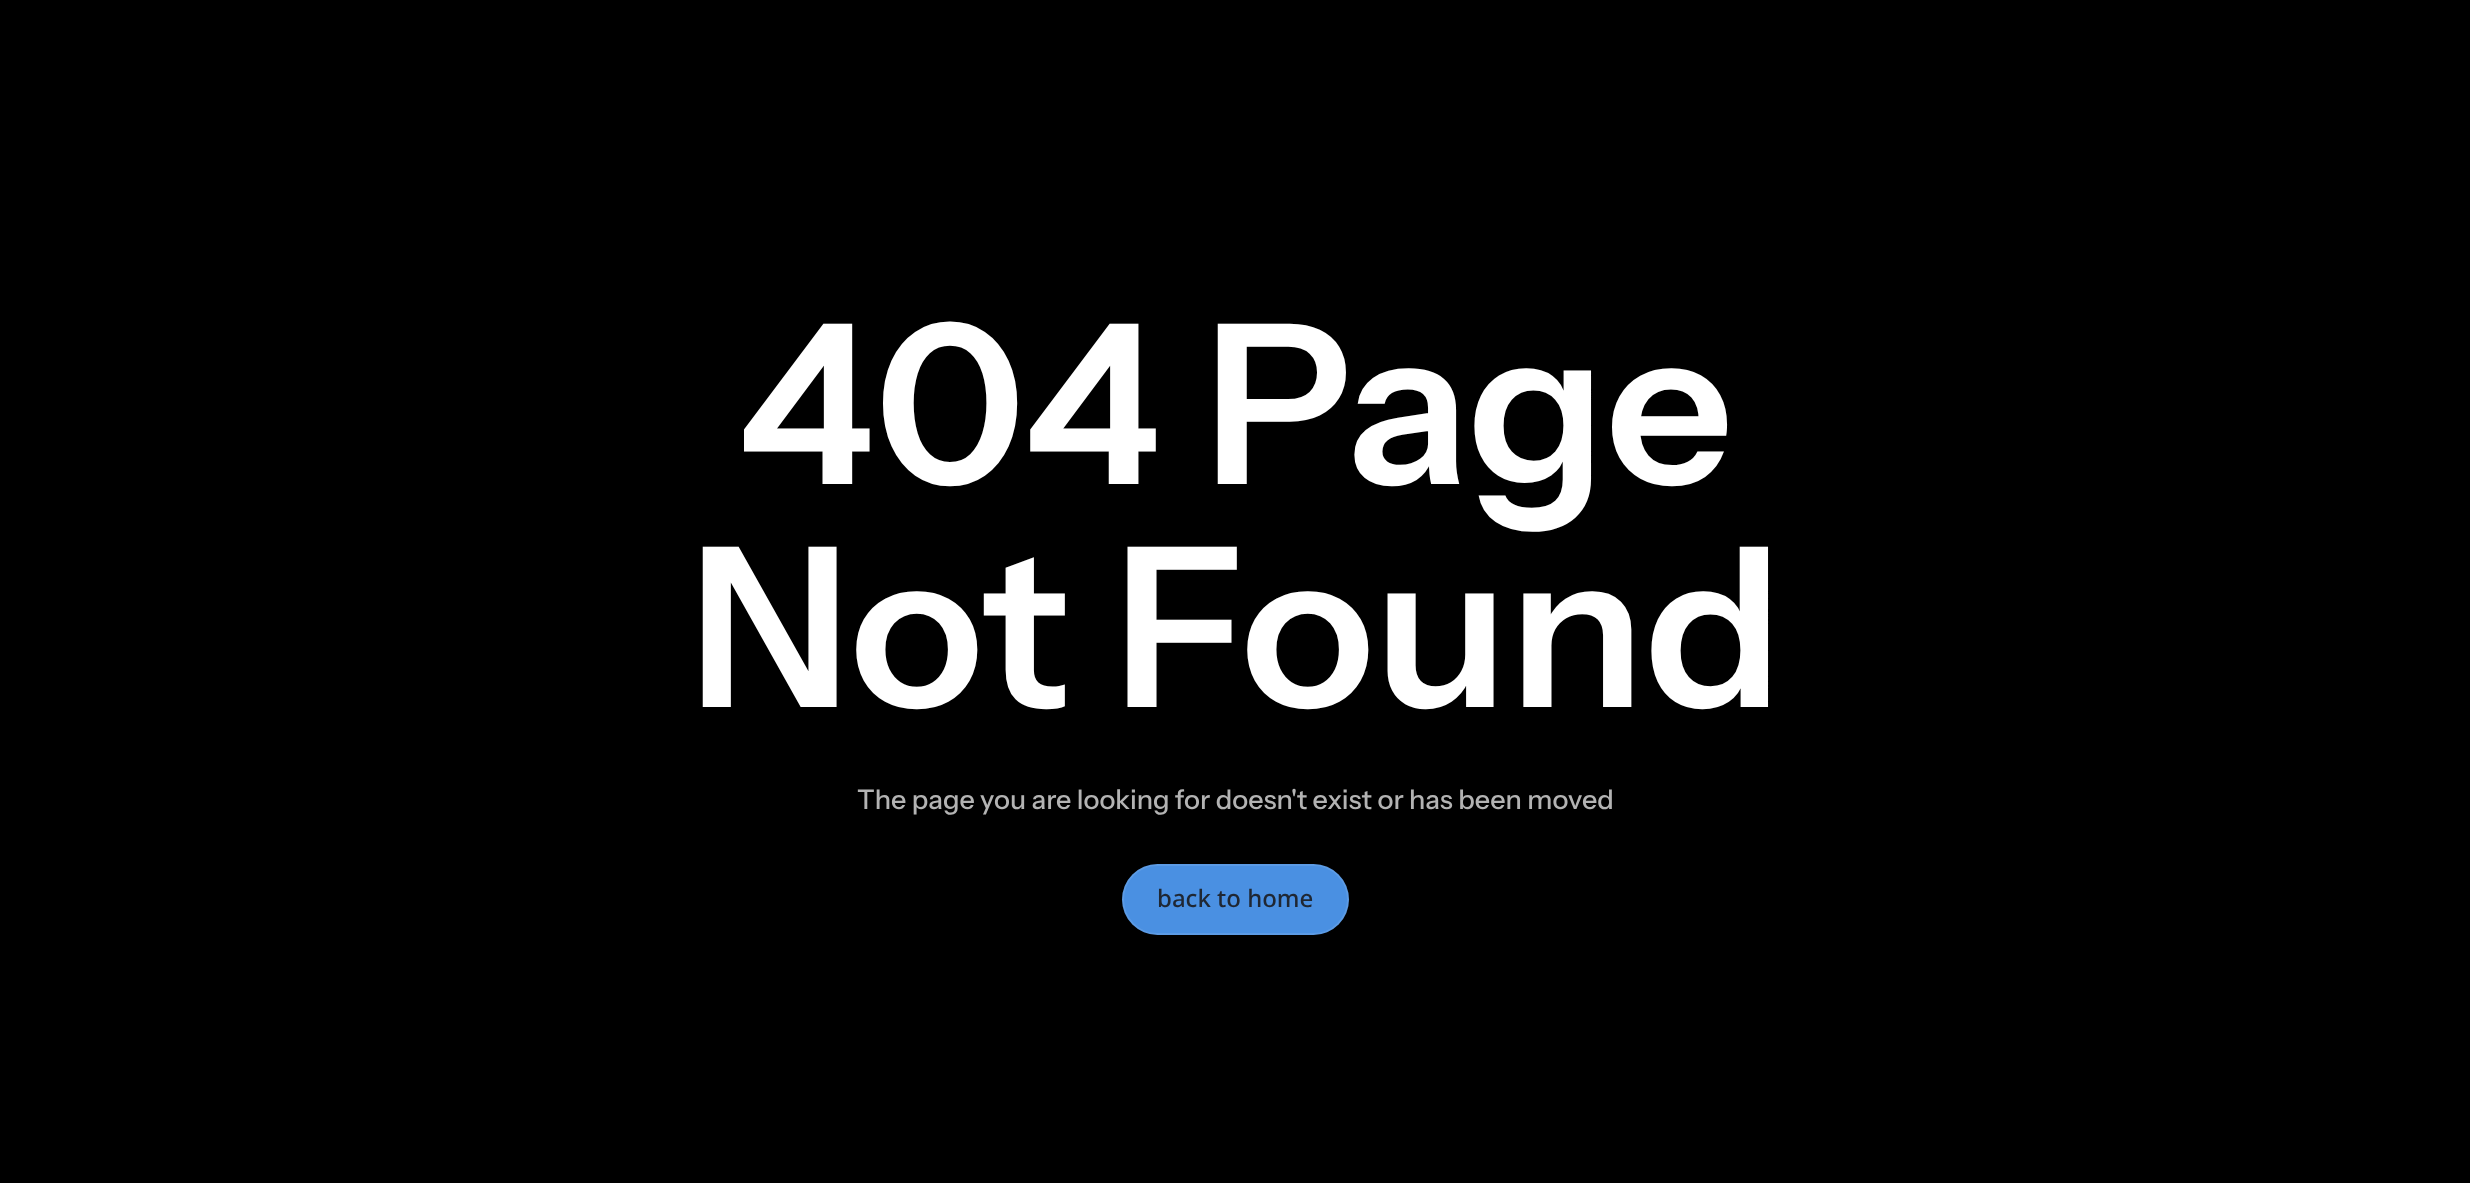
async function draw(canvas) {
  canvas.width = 2470
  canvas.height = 1183
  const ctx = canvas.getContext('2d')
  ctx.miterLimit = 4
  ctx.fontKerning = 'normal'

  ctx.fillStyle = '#000'
  ctx.fillRect(0, 0, 2470, 1183)
  ctx.font = '600 222.5px Instrument Sans'
  ctx.fillStyle = '#fff'
  ctx.fillText('404 Page', 738, 484)
  ctx.fillText('Not Found', 689, 707)
  ctx.font = '500 27px Instrument Sans'
  ctx.fillStyle = '#b3b3b3'
  ctx.fillText('The page you are looking for doesn\'t exist or has been moved', 857, 809)
  ctx.fillStyle = '#4a90e2'
  ctx.beginPath()
  ctx.roundRect(1122, 864, 227, 71, 35.5)
  ctx.fill()
  ctx.beginPath()
  ctx.roundRect(1123, 865, 225, 69, 34.5)
  ctx.strokeStyle = '#ffffff1a'
  ctx.lineWidth = 2
  ctx.stroke()
  ctx.font = '500 24px Noto Sans'
  ctx.fillStyle = '#1f2733'
  ctx.fillText('back to home', 1157, 907)
}

draw(document.querySelector('canvas'))
